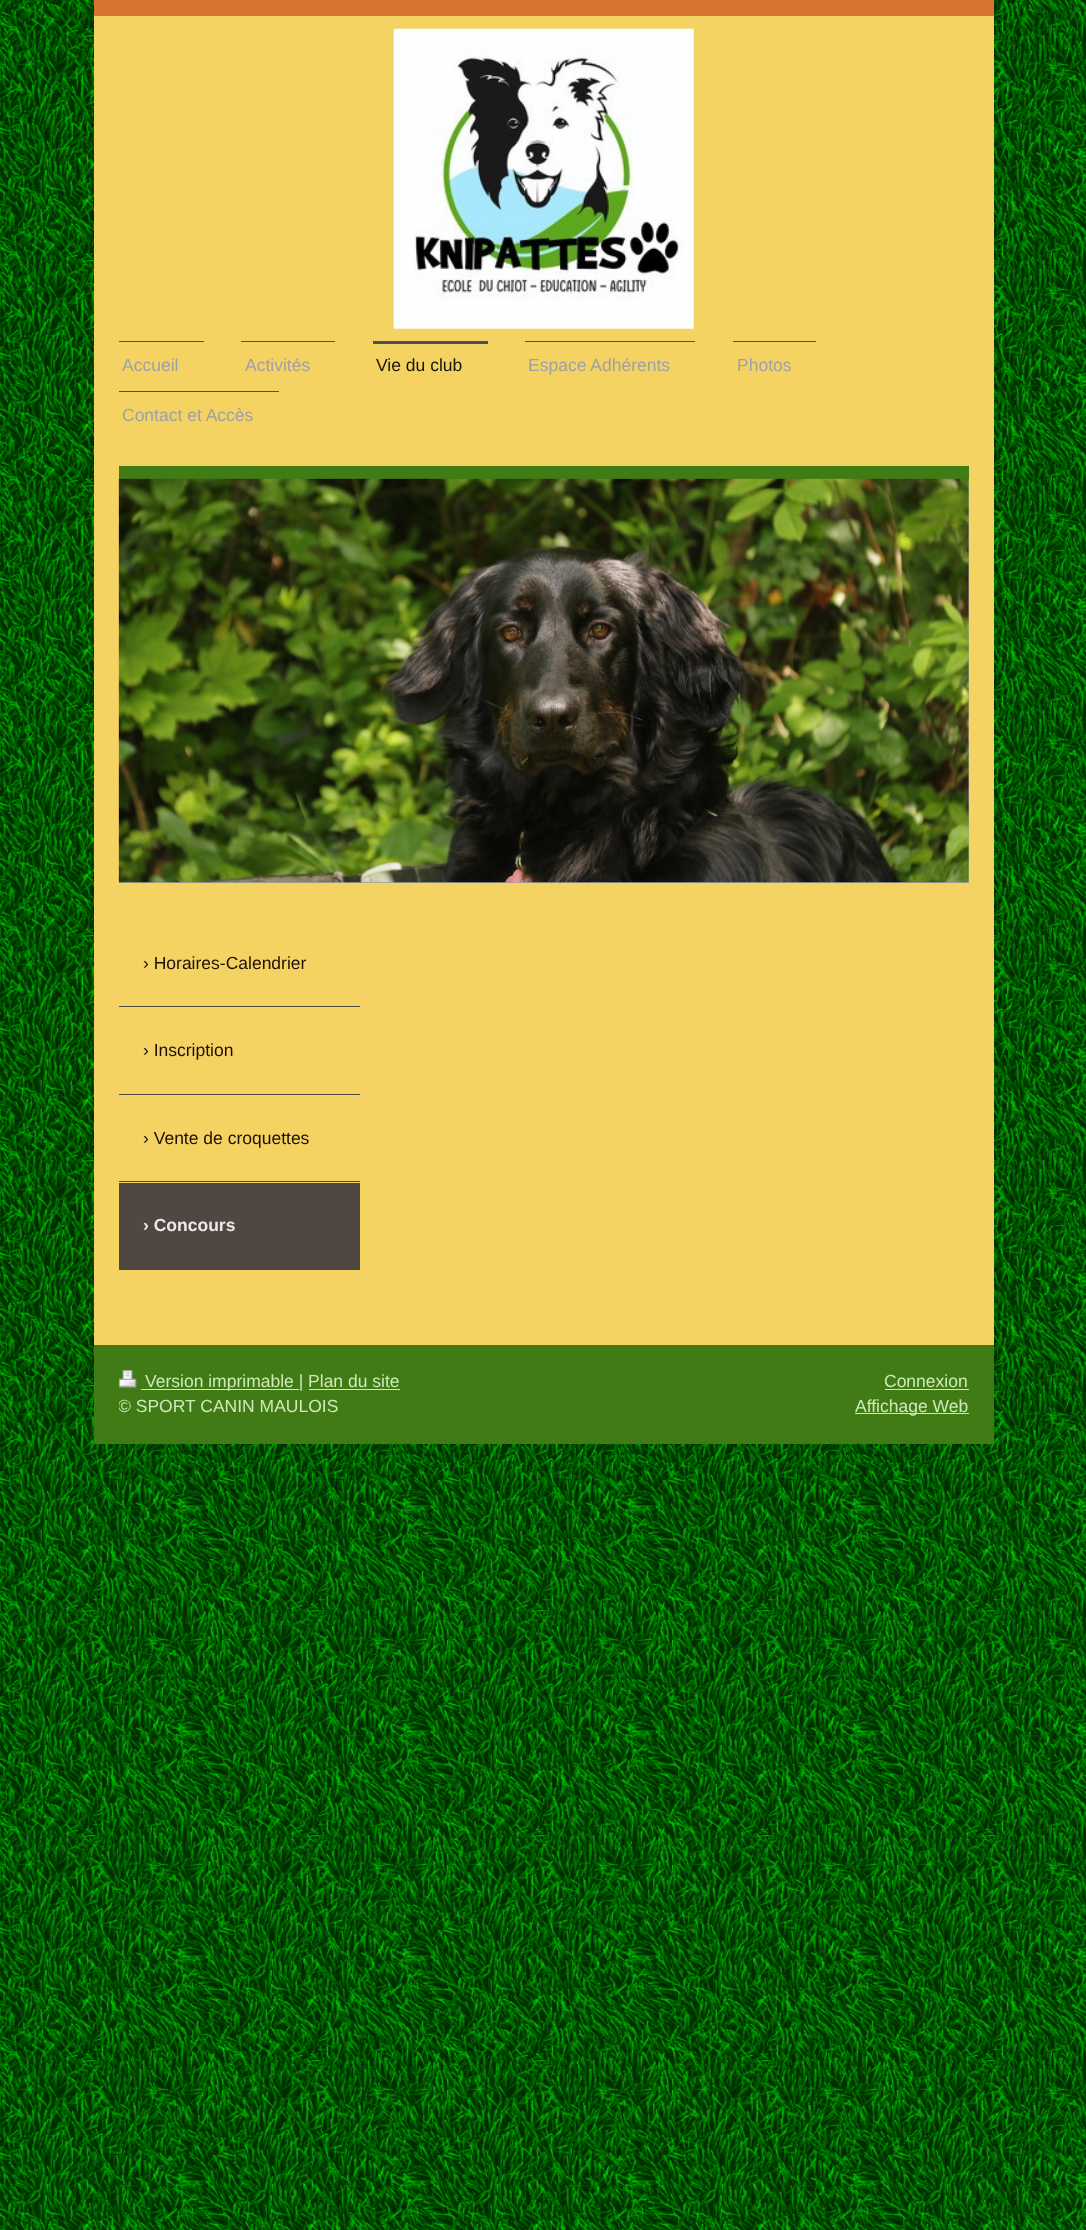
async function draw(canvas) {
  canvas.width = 1086
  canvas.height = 2230
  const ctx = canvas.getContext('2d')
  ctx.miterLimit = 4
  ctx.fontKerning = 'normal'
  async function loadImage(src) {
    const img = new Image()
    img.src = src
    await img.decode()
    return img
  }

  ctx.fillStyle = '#fff'
  ctx.fillRect(0, 0, 1086, 2230)
  ctx.drawImage(await loadImage('image0.png'), 0, 0, 1086, 2230)
  ctx.fillStyle = '#f5d362'
  ctx.fillRect(94, 16, 900, 1329)
  ctx.fillStyle = '#d97332'
  ctx.fillRect(94, 0, 900, 16)
  ctx.drawImage(await loadImage('image1.png'), 393, 28, 301, 301)
  ctx.fillStyle = '#4f4f58'
  ctx.fillRect(119, 341, 85, 1)
  ctx.font = '17.5px Liberation Sans'
  ctx.fillStyle = '#9f9fa8'
  ctx.fillText('Accueil', 122, 371)
  ctx.fillStyle = '#4f4f58'
  ctx.fillRect(241, 341, 94, 1)
  ctx.fillStyle = '#9f9fa8'
  ctx.fillText('Activités', 245, 371)
  ctx.fillStyle = '#4f4f58'
  ctx.fillRect(373, 341, 115, 3)
  ctx.fillStyle = '#19150a'
  ctx.fillText('Vie du club', 376, 371)
  ctx.fillStyle = '#4f4f58'
  ctx.fillRect(525, 341, 170, 1)
  ctx.fillStyle = '#9f9fa8'
  ctx.fillText('Espace Adhérents', 528, 371)
  ctx.fillStyle = '#4f4f58'
  ctx.fillRect(733, 341, 83, 1)
  ctx.fillStyle = '#9f9fa8'
  ctx.fillText('Photos', 737, 371)
  ctx.fillStyle = '#4f4f58'
  ctx.fillRect(119, 391, 160, 1)
  ctx.fillStyle = '#9f9fa8'
  ctx.fillText('Contact et Accès', 122, 421)
  ctx.fillStyle = '#417b15'
  ctx.fillRect(119, 466, 850, 13)
  ctx.drawImage(await loadImage('image2.png'), 118, 478, 851, 404)
  ctx.fillStyle = '#a0a0a0'
  ctx.fillRect(119, 479, 850, 404)
  ctx.drawImage(await loadImage('image3.png'), 118, 478, 851, 405)
  ctx.fillStyle = '#504742'
  ctx.fillRect(119, 1006, 241, 1)
  ctx.fillStyle = '#1f1007'
  ctx.fillText('› Horaires-Calendrier', 143, 969)
  ctx.fillStyle = '#504742'
  ctx.fillRect(119, 1094, 241, 1)
  ctx.fillStyle = '#1f1007'
  ctx.fillText('› Inscription', 143, 1056)
  ctx.fillStyle = '#504742'
  ctx.fillRect(119, 1181, 241, 1)
  ctx.fillStyle = '#1f1007'
  ctx.fillText('› Vente de croquettes', 143, 1144)
  ctx.fillStyle = '#504742'
  ctx.fillRect(119, 1183, 241, 87)
  ctx.font = 'bold 17.5px Liberation Sans'
  ctx.fillStyle = '#ebe9e9'
  ctx.fillText('› Concours', 143, 1231)
  ctx.fillStyle = '#417b15'
  ctx.fillRect(94, 1345, 900, 99)
  ctx.drawImage(await loadImage('image4.png'), 118, 1370, 19, 18)
  ctx.fillStyle = '#ceeab9'
  ctx.fillRect(141, 1389, 158, 1)
  ctx.font = '17.5px Liberation Sans'
  ctx.fillText('Version imprimable | Plan du site', 145, 1387)
  ctx.fillRect(309, 1389, 91, 1)
  ctx.save()
  ctx.beginPath()
  ctx.rect(119, 1370, 850, 49)
  ctx.clip()
  ctx.fillText('© SPORT CANIN MAULOIS', 118, 1412)
  ctx.restore()
  ctx.fillText('Connexion', 884, 1387)
  ctx.fillRect(885, 1389, 84, 1)
  ctx.fillRect(855, 1413, 114, 1)
  ctx.fillText('Affichage Web', 855, 1412)
}

draw(document.querySelector('canvas'))
